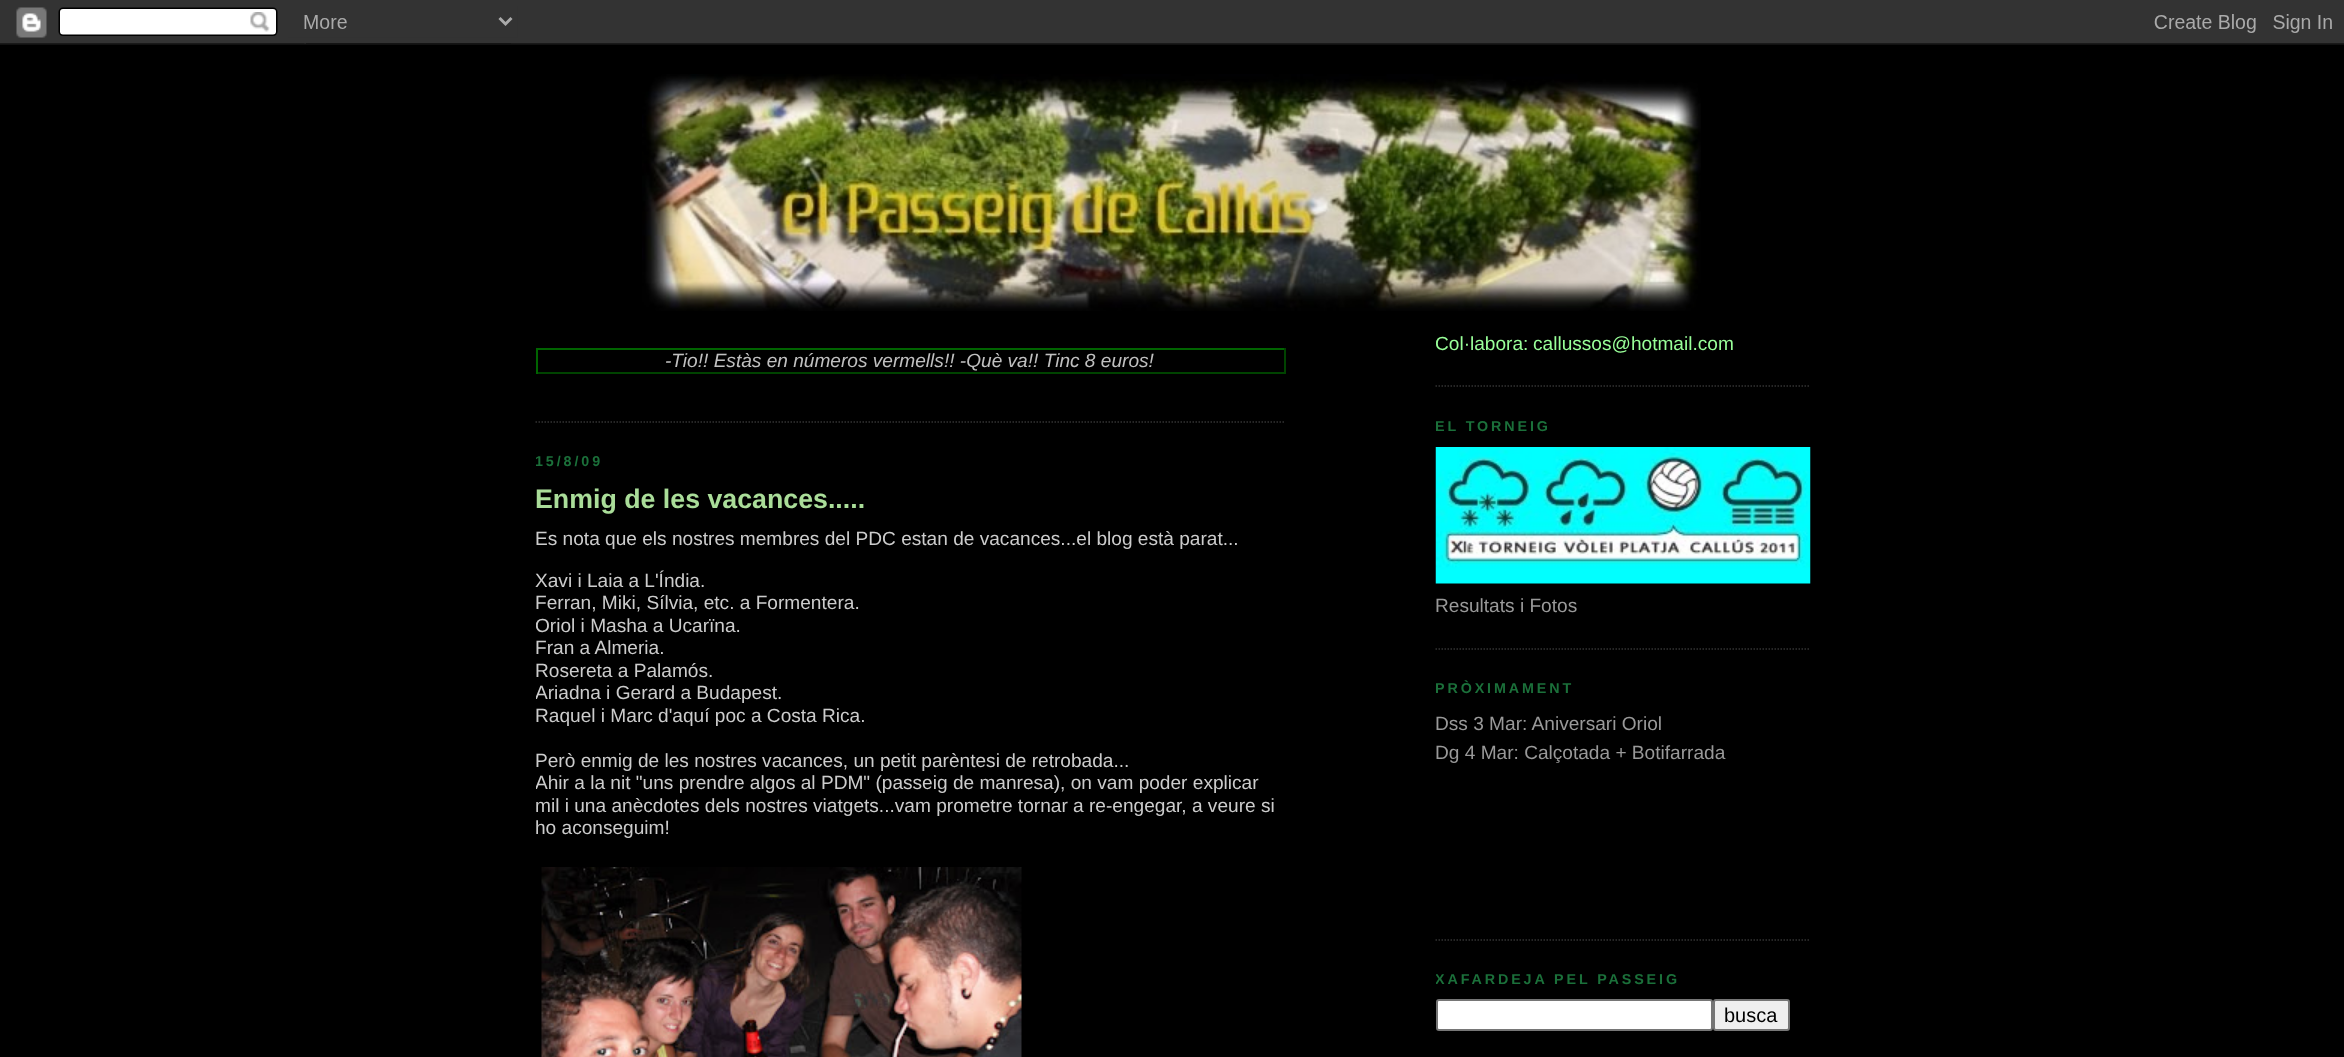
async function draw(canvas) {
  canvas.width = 2344
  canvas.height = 1057
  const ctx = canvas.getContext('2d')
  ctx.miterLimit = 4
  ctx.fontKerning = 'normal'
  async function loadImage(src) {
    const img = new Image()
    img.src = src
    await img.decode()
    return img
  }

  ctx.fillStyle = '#000'
  ctx.fillRect(0, 0, 2344, 1057)
  ctx.drawImage(await loadImage('image0.png'), 0, 0, 2344, 45)
  ctx.drawImage(await loadImage('image1.png'), 642, 74, 1059, 237)
  ctx.beginPath()
  ctx.moveTo(535.5, 422)
  ctx.lineTo(1285.5, 422)
  ctx.strokeStyle = '#333'
  ctx.lineWidth = 1.5
  ctx.setLineDash([1.5, 1.5])
  ctx.stroke()
  ctx.fillStyle = '#006400'
  ctx.fillRect(536, 348, 750, 2)
  ctx.fillStyle = '#004300'
  ctx.fillRect(1284, 348, 2, 26)
  ctx.fillRect(536, 372, 750, 2)
  ctx.fillStyle = '#006400'
  ctx.fillRect(536, 348, 2, 26)
  ctx.font = 'italic 19.1px Liberation Sans'
  ctx.fillStyle = '#c0c0c0'
  ctx.fillText('-Tio!! Estàs en números vermells!! -Què va!! Tinc 8 euros!', 665, 367)
  ctx.save()
  ctx.beginPath()
  ctx.rect(536, 329, 750, 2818)
  ctx.clip()
  ctx.letterSpacing = '2.9px'
  ctx.font = 'bold 14.3px Liberation Sans'
  ctx.fillStyle = '#1b703a'
  ctx.fillText('15/8/09', 535, 466)
  ctx.restore()
  ctx.font = 'bold 26.75px Liberation Sans'
  ctx.fillStyle = '#ad9'
  ctx.fillText('Enmig de les vacances.....', 535, 508)
  ctx.font = '19.1px Liberation Sans'
  ctx.fillStyle = '#ccc'
  ctx.fillText('Es nota que els nostres membres del PDC estan de vacances...el blog està parat...', 535, 545)
  ctx.fillText('Xavi i Laia a L\'Índia.', 535, 587)
  ctx.fillText('Ferran, Miki, Sílvia, etc. a Formentera.', 535, 609)
  ctx.save()
  ctx.beginPath()
  ctx.rect(536, 329, 750, 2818)
  ctx.clip()
  ctx.fillText('Oriol i Masha a Ucarïna.', 535, 632)
  ctx.restore()
  ctx.fillText('Fran a Almeria.', 535, 654)
  ctx.fillText('Rosereta a Palamós.', 535, 677)
  ctx.save()
  ctx.beginPath()
  ctx.rect(536, 329, 750, 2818)
  ctx.clip()
  ctx.fillText('Ariadna i Gerard a Budapest.', 535, 699)
  ctx.restore()
  ctx.fillText('Raquel i Marc d\'aquí poc a Costa Rica.', 535, 722)
  ctx.fillText('Però enmig de les nostres vacances, un petit parèntesi de retrobada...', 535, 767)
  ctx.save()
  ctx.beginPath()
  ctx.rect(536, 329, 750, 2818)
  ctx.clip()
  ctx.fillText('Ahir a la nit "uns prendre algos al PDM" (passeig de manresa), on vam poder explicar', 535, 789)
  ctx.restore()
  ctx.fillText('mil i una anècdotes dels nostres viatgets...vam prometre tornar a re-engegar, a veure si', 535, 812)
  ctx.fillText('ho aconseguim!', 535, 834)
  ctx.drawImage(await loadImage('image2.png'), 541, 867, 481, 190)
  ctx.beginPath()
  ctx.moveTo(1435.5, 386)
  ctx.lineTo(1810.5, 386)
  ctx.stroke()
  ctx.save()
  ctx.beginPath()
  ctx.rect(1436, 329, 375, 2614)
  ctx.clip()
  ctx.fillStyle = '#9f9'
  ctx.fillText('Col·labora:', 1435, 350)
  ctx.restore()
  ctx.fillStyle = '#9f9'
  ctx.fillText('callussos@hotmail.com', 1533, 350)
  ctx.beginPath()
  ctx.moveTo(1435.5, 649)
  ctx.lineTo(1810.5, 649)
  ctx.stroke()
  ctx.save()
  ctx.beginPath()
  ctx.rect(1436, 329, 375, 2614)
  ctx.clip()
  ctx.letterSpacing = '2.9px'
  ctx.font = 'bold 14.3px Liberation Sans'
  ctx.fillStyle = '#1b703a'
  ctx.fillText('EL TORNEIG', 1435, 431)
  ctx.restore()
  ctx.drawImage(await loadImage('image3.png'), 1435, 447, 376, 137)
  ctx.fillStyle = '#999'
  ctx.fillText('Resultats i Fotos', 1435, 612)
  ctx.beginPath()
  ctx.moveTo(1435.5, 940)
  ctx.lineTo(1810.5, 940)
  ctx.stroke()
  ctx.save()
  ctx.beginPath()
  ctx.rect(1436, 329, 375, 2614)
  ctx.clip()
  ctx.letterSpacing = '2.9px'
  ctx.font = 'bold 14.3px Liberation Sans'
  ctx.fillStyle = '#1b703a'
  ctx.fillText('PRÒXIMAMENT', 1435, 693)
  ctx.restore()
  ctx.fillText('Dss 3 Mar: Aniversari Oriol', 1435, 730)
  ctx.fillText('Dg 4 Mar: Calçotada + Botifarrada', 1435, 759)
  ctx.save()
  ctx.beginPath()
  ctx.rect(1436, 329, 375, 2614)
  ctx.clip()
  ctx.letterSpacing = '2.9px'
  ctx.font = 'bold 14.3px Liberation Sans'
  ctx.fillStyle = '#1b703a'
  ctx.fillText('XAFARDEJA PEL PASSEIG', 1435, 984)
  ctx.restore()
  ctx.fillStyle = '#fff'
  ctx.beginPath()
  ctx.roundRect(1437, 1000, 275, 30, 2)
  ctx.fill()
  ctx.strokeStyle = '#767676'
  ctx.lineWidth = 2
  ctx.setLineDash([])
  ctx.stroke()
  ctx.fillStyle = '#efefef'
  ctx.beginPath()
  ctx.roundRect(1714, 1000, 75, 30, 2)
  ctx.fill()
  ctx.stroke()
  ctx.font = '20px Liberation Sans'
  ctx.fillStyle = '#000'
  ctx.fillText('busca', 1724, 1022)
}

draw(document.querySelector('canvas'))
